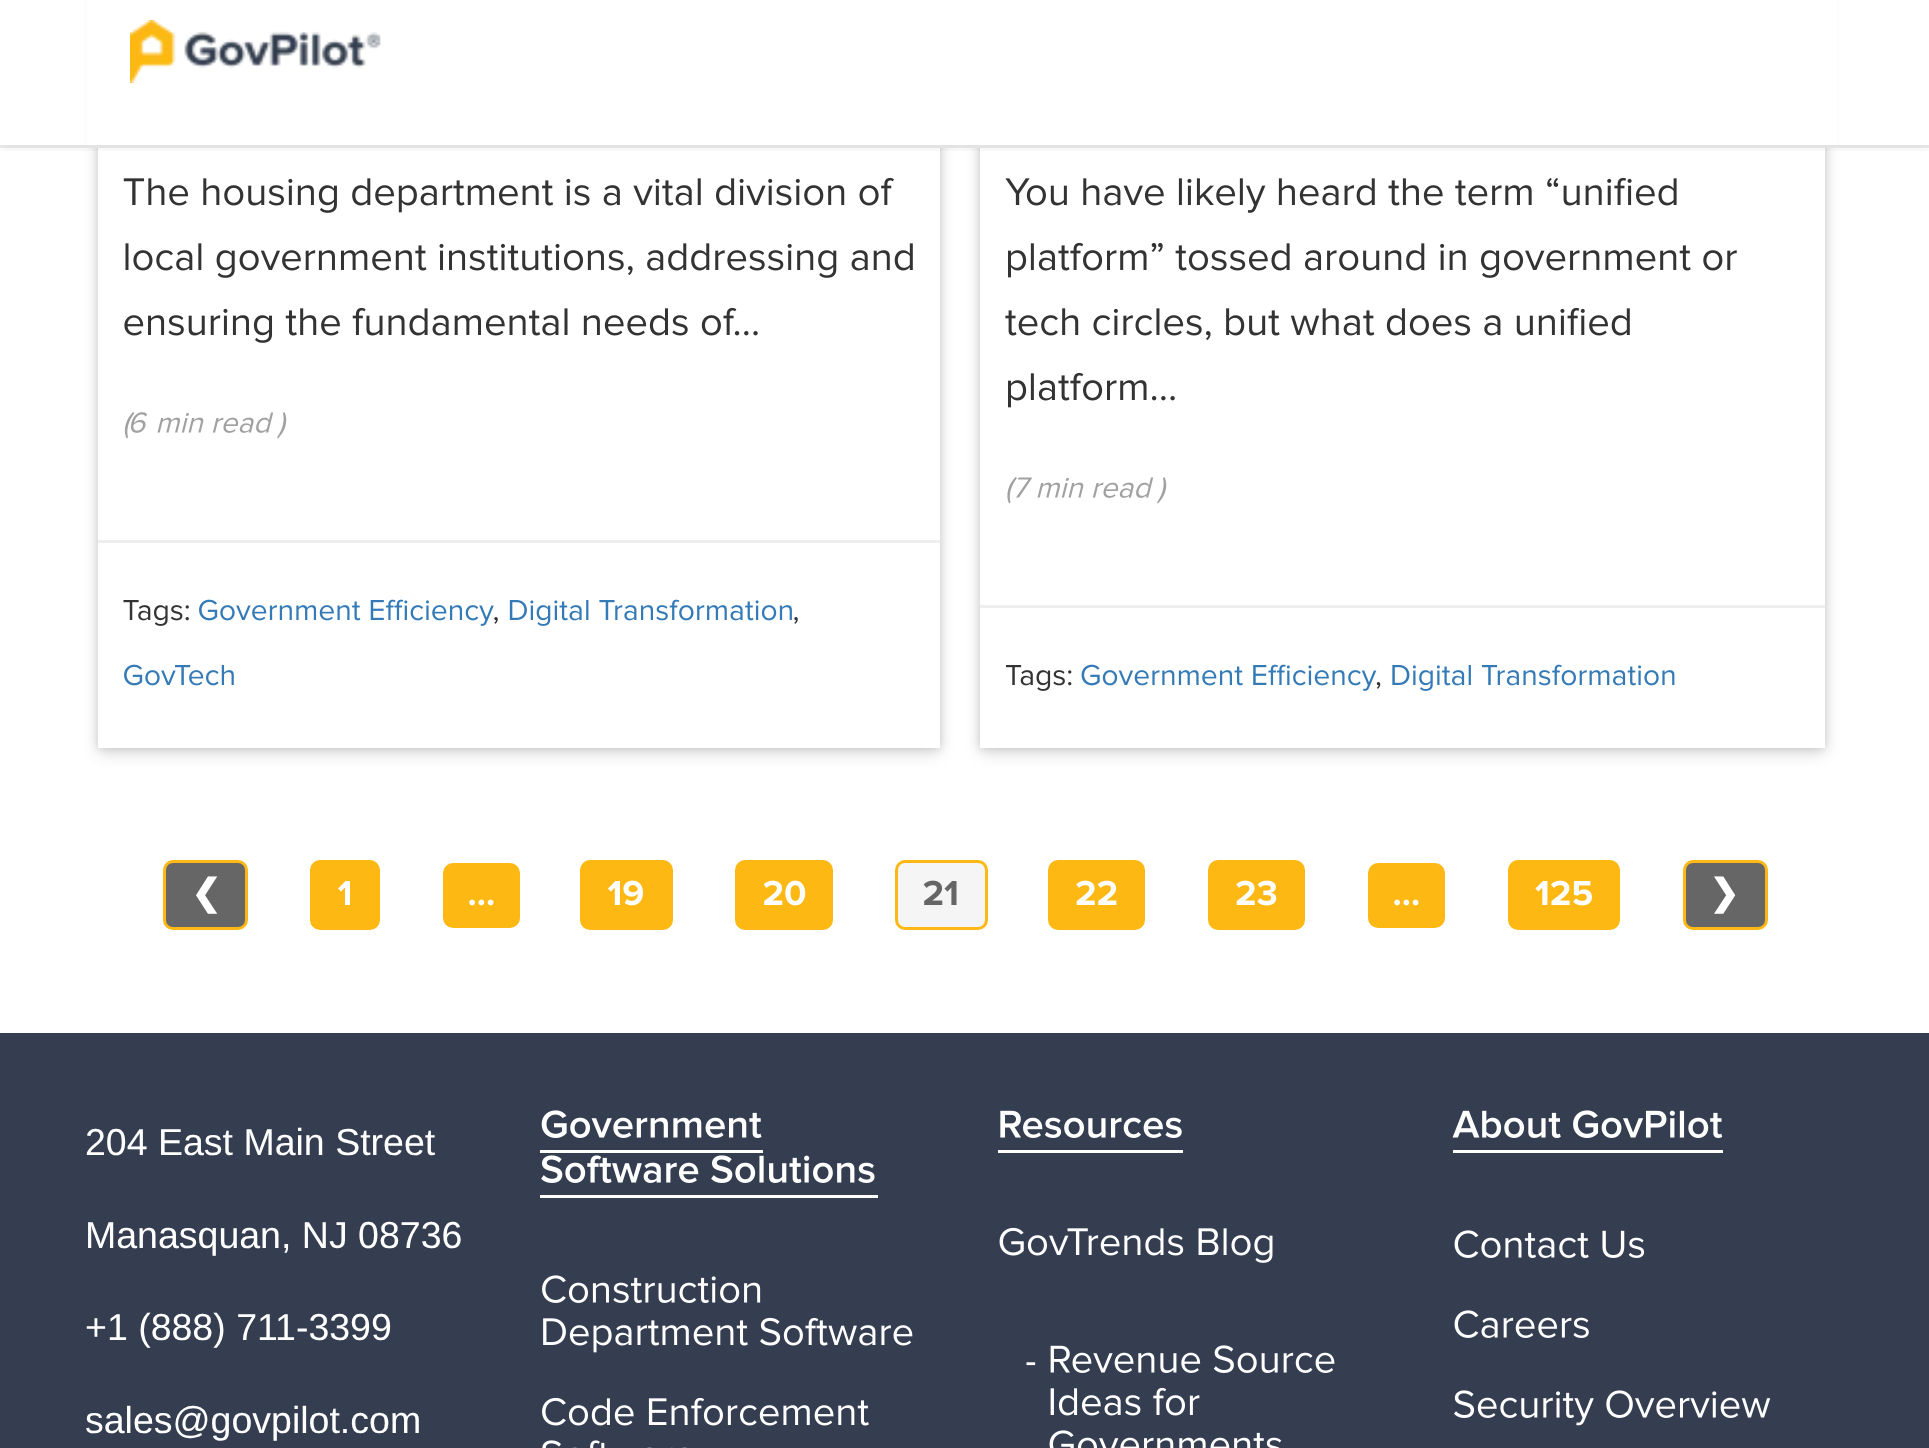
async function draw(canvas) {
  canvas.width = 1929
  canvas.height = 1448
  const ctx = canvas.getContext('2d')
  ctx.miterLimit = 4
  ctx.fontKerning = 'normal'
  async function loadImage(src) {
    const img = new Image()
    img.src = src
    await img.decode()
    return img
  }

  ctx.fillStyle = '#fff'
  ctx.fillRect(0, 0, 1929, 1448)
  ctx.save()
  ctx.beginPath()
  ctx.moveTo(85, 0)
  ctx.lineTo(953, 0)
  ctx.lineTo(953, 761)
  ctx.lineTo(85, 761)
  ctx.closePath()
  ctx.moveTo(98, -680)
  ctx.lineTo(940, -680)
  ctx.lineTo(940, 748)
  ctx.lineTo(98, 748)
  ctx.closePath()
  ctx.clip('evenodd')
  ctx.fillStyle = '#0000001f'
  ctx.filter = 'blur(4px)'
  ctx.beginPath()
  ctx.rect(98, -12, 842, 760)
  ctx.fill()
  ctx.filter = 'none'
  ctx.restore()
  ctx.save()
  ctx.beginPath()
  ctx.moveTo(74, 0)
  ctx.lineTo(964, 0)
  ctx.lineTo(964, 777)
  ctx.lineTo(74, 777)
  ctx.closePath()
  ctx.moveTo(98, -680)
  ctx.lineTo(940, -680)
  ctx.lineTo(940, 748)
  ctx.lineTo(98, 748)
  ctx.closePath()
  ctx.clip('evenodd')
  ctx.fillStyle = '#00000026'
  ctx.filter = 'blur(7.5px)'
  ctx.beginPath()
  ctx.rect(98, -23, 842, 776)
  ctx.fill()
  ctx.filter = 'none'
  ctx.restore()
  ctx.save()
  ctx.beginPath()
  ctx.moveTo(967, 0)
  ctx.lineTo(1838, 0)
  ctx.lineTo(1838, 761)
  ctx.lineTo(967, 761)
  ctx.closePath()
  ctx.moveTo(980, -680)
  ctx.lineTo(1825, -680)
  ctx.lineTo(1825, 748)
  ctx.lineTo(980, 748)
  ctx.closePath()
  ctx.clip('evenodd')
  ctx.fillStyle = '#0000001f'
  ctx.filter = 'blur(4px)'
  ctx.beginPath()
  ctx.rect(980, -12, 845, 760)
  ctx.fill()
  ctx.filter = 'none'
  ctx.restore()
  ctx.save()
  ctx.beginPath()
  ctx.moveTo(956, 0)
  ctx.lineTo(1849, 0)
  ctx.lineTo(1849, 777)
  ctx.lineTo(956, 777)
  ctx.closePath()
  ctx.moveTo(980, -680)
  ctx.lineTo(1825, -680)
  ctx.lineTo(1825, 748)
  ctx.lineTo(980, 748)
  ctx.closePath()
  ctx.clip('evenodd')
  ctx.fillStyle = '#00000026'
  ctx.filter = 'blur(7.5px)'
  ctx.beginPath()
  ctx.rect(980, -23, 845, 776)
  ctx.fill()
  ctx.filter = 'none'
  ctx.restore()
  ctx.fillRect(87, 0, 1749, 145)
  ctx.fillStyle = '#eee'
  ctx.fillRect(0, 145, 1929, 3)
  ctx.save()
  ctx.beginPath()
  ctx.rect(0, 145, 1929, 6)
  ctx.clip()
  ctx.fillStyle = '#00000012'
  ctx.filter = 'blur(6px)'
  ctx.beginPath()
  ctx.rect(0, 3, 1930, 145)
  ctx.fill()
  ctx.filter = 'none'
  ctx.restore()
  ctx.drawImage(await loadImage('image0.png'), 130, 20, 251, 63)
  ctx.drawImage(await loadImage('image1.png'), 123, 177, 771, 36)
  ctx.drawImage(await loadImage('image2.png'), 125, 243, 788, 35)
  ctx.drawImage(await loadImage('image3.png'), 124, 307, 634, 36)
  ctx.fillStyle = '#a1a1a1'
  ctx.beginPath()
  ctx.moveTo(128, 437.5)
  ctx.bezierCurveTo(126, 428.5, 129, 420, 134.5, 413)
  ctx.lineTo(133, 412)
  ctx.bezierCurveTo(126.5, 418.5, 122.5, 429.5, 126.5, 438.5)
  ctx.closePath()
  ctx.fill()
  ctx.drawImage(await loadImage('image4.png'), 131, 412, 16, 21)
  ctx.drawImage(await loadImage('image5.png'), 157, 412, 117, 21)
  ctx.beginPath()
  ctx.moveTo(277, 437.5)
  ctx.bezierCurveTo(282, 430.5, 285, 422, 283, 413)
  ctx.lineTo(284.5, 412)
  ctx.bezierCurveTo(289, 421, 284.5, 432, 278, 438.5)
  ctx.closePath()
  ctx.fill()
  ctx.fillStyle = '#eee'
  ctx.fillRect(98, 540, 842, 3)
  ctx.drawImage(await loadImage('image6.png'), 123, 600, 66, 26)
  ctx.drawImage(await loadImage('image7.png'), 199, 599, 295, 27)
  ctx.drawImage(await loadImage('image8.png'), 494, 617, 4, 7)
  ctx.drawImage(await loadImage('image9.png'), 509, 599, 283, 27)
  ctx.drawImage(await loadImage('image8.png'), 794, 617, 4, 7)
  ctx.drawImage(await loadImage('image10.png'), 124, 664, 110, 22)
  ctx.drawImage(await loadImage('image11.png'), 1005, 177, 672, 36)
  ctx.drawImage(await loadImage('image12.png'), 1008, 242, 729, 36)
  ctx.drawImage(await loadImage('image13.png'), 1005, 307, 625, 33)
  ctx.drawImage(await loadImage('image14.png'), 1008, 372, 167, 36)
  ctx.fillStyle = '#a1a1a1'
  ctx.beginPath()
  ctx.moveTo(1010.5, 502.5)
  ctx.bezierCurveTo(1008.5, 493.5, 1011.5, 485, 1017, 478)
  ctx.lineTo(1015.5, 477)
  ctx.bezierCurveTo(1009, 483.5, 1005, 494.5, 1009, 503.5)
  ctx.closePath()
  ctx.fill()
  ctx.beginPath()
  ctx.moveTo(1019, 497.5)
  ctx.lineTo(1031.5, 479)
  ctx.lineTo(1032, 477.5)
  ctx.lineTo(1018.5, 477.5)
  ctx.lineTo(1018, 479.5)
  ctx.lineTo(1028.5, 479.5)
  ctx.lineTo(1016, 497.5)
  ctx.closePath()
  ctx.fill()
  ctx.drawImage(await loadImage('image5.png'), 1037, 477, 117, 21)
  ctx.beginPath()
  ctx.moveTo(1157, 502.5)
  ctx.bezierCurveTo(1162, 495.5, 1165, 487, 1163, 478)
  ctx.lineTo(1164.5, 477)
  ctx.bezierCurveTo(1169, 486, 1164.5, 497, 1158, 503.5)
  ctx.closePath()
  ctx.fill()
  ctx.fillStyle = '#eee'
  ctx.fillRect(980, 605, 845, 3)
  ctx.drawImage(await loadImage('image15.png'), 1005, 665, 67, 26)
  ctx.drawImage(await loadImage('image16.png'), 1081, 664, 296, 27)
  ctx.drawImage(await loadImage('image17.png'), 1376, 682, 5, 7)
  ctx.drawImage(await loadImage('image18.png'), 1392, 664, 283, 27)
  ctx.fillStyle = '#666'
  ctx.beginPath()
  ctx.roundRect(164.5, 861.5, 82, 67, 8.5)
  ctx.fill()
  ctx.strokeStyle = '#fdb813'
  ctx.lineWidth = 3
  ctx.stroke()
  ctx.font = 'bold 36px DejaVu Sans'
  ctx.fillStyle = '#fff'
  ctx.fillText('❮', 191, 905)
  ctx.fillStyle = '#fdb813'
  ctx.beginPath()
  ctx.roundRect(311.5, 861.5, 67, 67, 8.5)
  ctx.fill()
  ctx.stroke()
  ctx.fillStyle = '#fff'
  ctx.beginPath()
  ctx.moveTo(350, 905)
  ctx.lineTo(350, 881)
  ctx.lineTo(345.5, 881)
  ctx.lineTo(338, 888.5)
  ctx.lineTo(341, 891.5)
  ctx.lineTo(345, 887.5)
  ctx.lineTo(345, 905)
  ctx.closePath()
  ctx.fill()
  ctx.fillStyle = '#fdb813'
  ctx.beginPath()
  ctx.roundRect(443, 863, 77, 65, 10)
  ctx.fill()
  ctx.drawImage(await loadImage('image19.png'), 469, 899, 25, 7)
  ctx.beginPath()
  ctx.roundRect(581.5, 861.5, 90, 67, 8.5)
  ctx.fill()
  ctx.stroke()
  ctx.drawImage(await loadImage('image20.png'), 608, 880, 35, 26)
  ctx.beginPath()
  ctx.roundRect(736.5, 861.5, 95, 67, 8.5)
  ctx.fill()
  ctx.stroke()
  ctx.drawImage(await loadImage('image21.png'), 763, 880, 43, 26)
  ctx.fillStyle = '#f5f5f5'
  ctx.beginPath()
  ctx.roundRect(896.5, 861.5, 90, 67, 8.5)
  ctx.fill()
  ctx.stroke()
  ctx.drawImage(await loadImage('image22.png'), 923, 880, 34, 25)
  ctx.fillStyle = '#fdb813'
  ctx.beginPath()
  ctx.roundRect(1049.5, 861.5, 94, 67, 8.5)
  ctx.fill()
  ctx.stroke()
  ctx.drawImage(await loadImage('image23.png'), 1076, 880, 41, 25)
  ctx.beginPath()
  ctx.roundRect(1209.5, 861.5, 94, 67, 8.5)
  ctx.fill()
  ctx.stroke()
  ctx.drawImage(await loadImage('image24.png'), 1236, 880, 41, 26)
  ctx.beginPath()
  ctx.roundRect(1368, 863, 77, 65, 10)
  ctx.fill()
  ctx.drawImage(await loadImage('image19.png'), 1394, 899, 25, 7)
  ctx.beginPath()
  ctx.roundRect(1509.5, 861.5, 109, 67, 8.5)
  ctx.fill()
  ctx.stroke()
  ctx.drawImage(await loadImage('image25.png'), 1535, 880, 57, 26)
  ctx.fillStyle = '#666'
  ctx.beginPath()
  ctx.roundRect(1684.5, 861.5, 82, 67, 8.5)
  ctx.fill()
  ctx.stroke()
  ctx.fillStyle = '#fff'
  ctx.fillText('❯', 1709, 905)
  ctx.fillStyle = '#343e50'
  ctx.fillRect(0, 1033, 1929, 415)
  ctx.font = '37.5px Liberation Sans'
  ctx.fillStyle = '#fff'
  ctx.fillText('204 East Main Street', 85, 1155)
  ctx.fillText('Manasquan, NJ 08736', 85, 1248)
  ctx.fillText('+1 (888) 711-3399', 85, 1340)
  ctx.fillText('sales@govpilot.com', 85, 1433)
  ctx.drawImage(await loadImage('image26.png'), 541, 1110, 221, 28)
  ctx.fillRect(540, 1150, 223, 3)
  ctx.drawImage(await loadImage('image27.png'), 541, 1155, 334, 28)
  ctx.fillRect(540, 1195, 338, 3)
  ctx.drawImage(await loadImage('image28.png'), 542, 1275, 219, 28)
  ctx.drawImage(await loadImage('image29.png'), 543, 1317, 370, 36)
  ctx.drawImage(await loadImage('image30.png'), 542, 1397, 327, 29)
  ctx.drawImage(await loadImage('image31.png'), 542, 1440, 145, 8)
  ctx.drawImage(await loadImage('image32.png'), 1000, 1110, 182, 28)
  ctx.fillRect(998, 1150, 185, 3)
  ctx.drawImage(await loadImage('image33.png'), 999, 1227, 274, 36)
  ctx.font = '35px Liberation Sans'
  ctx.fillText('-', 1025, 1373)
  ctx.drawImage(await loadImage('image34.png'), 1050, 1345, 285, 28)
  ctx.drawImage(await loadImage('image35.png'), 1050, 1387, 150, 29)
  ctx.drawImage(await loadImage('image36.png'), 1049, 1430, 233, 18)
  ctx.drawImage(await loadImage('image37.png'), 1452, 1110, 271, 28)
  ctx.fillRect(1453, 1150, 270, 3)
  ctx.drawImage(await loadImage('image38.png'), 1454, 1230, 191, 28)
  ctx.drawImage(await loadImage('image39.png'), 1454, 1310, 135, 28)
  ctx.drawImage(await loadImage('image40.png'), 1454, 1390, 317, 36)
}

draw(document.querySelector('canvas'))
